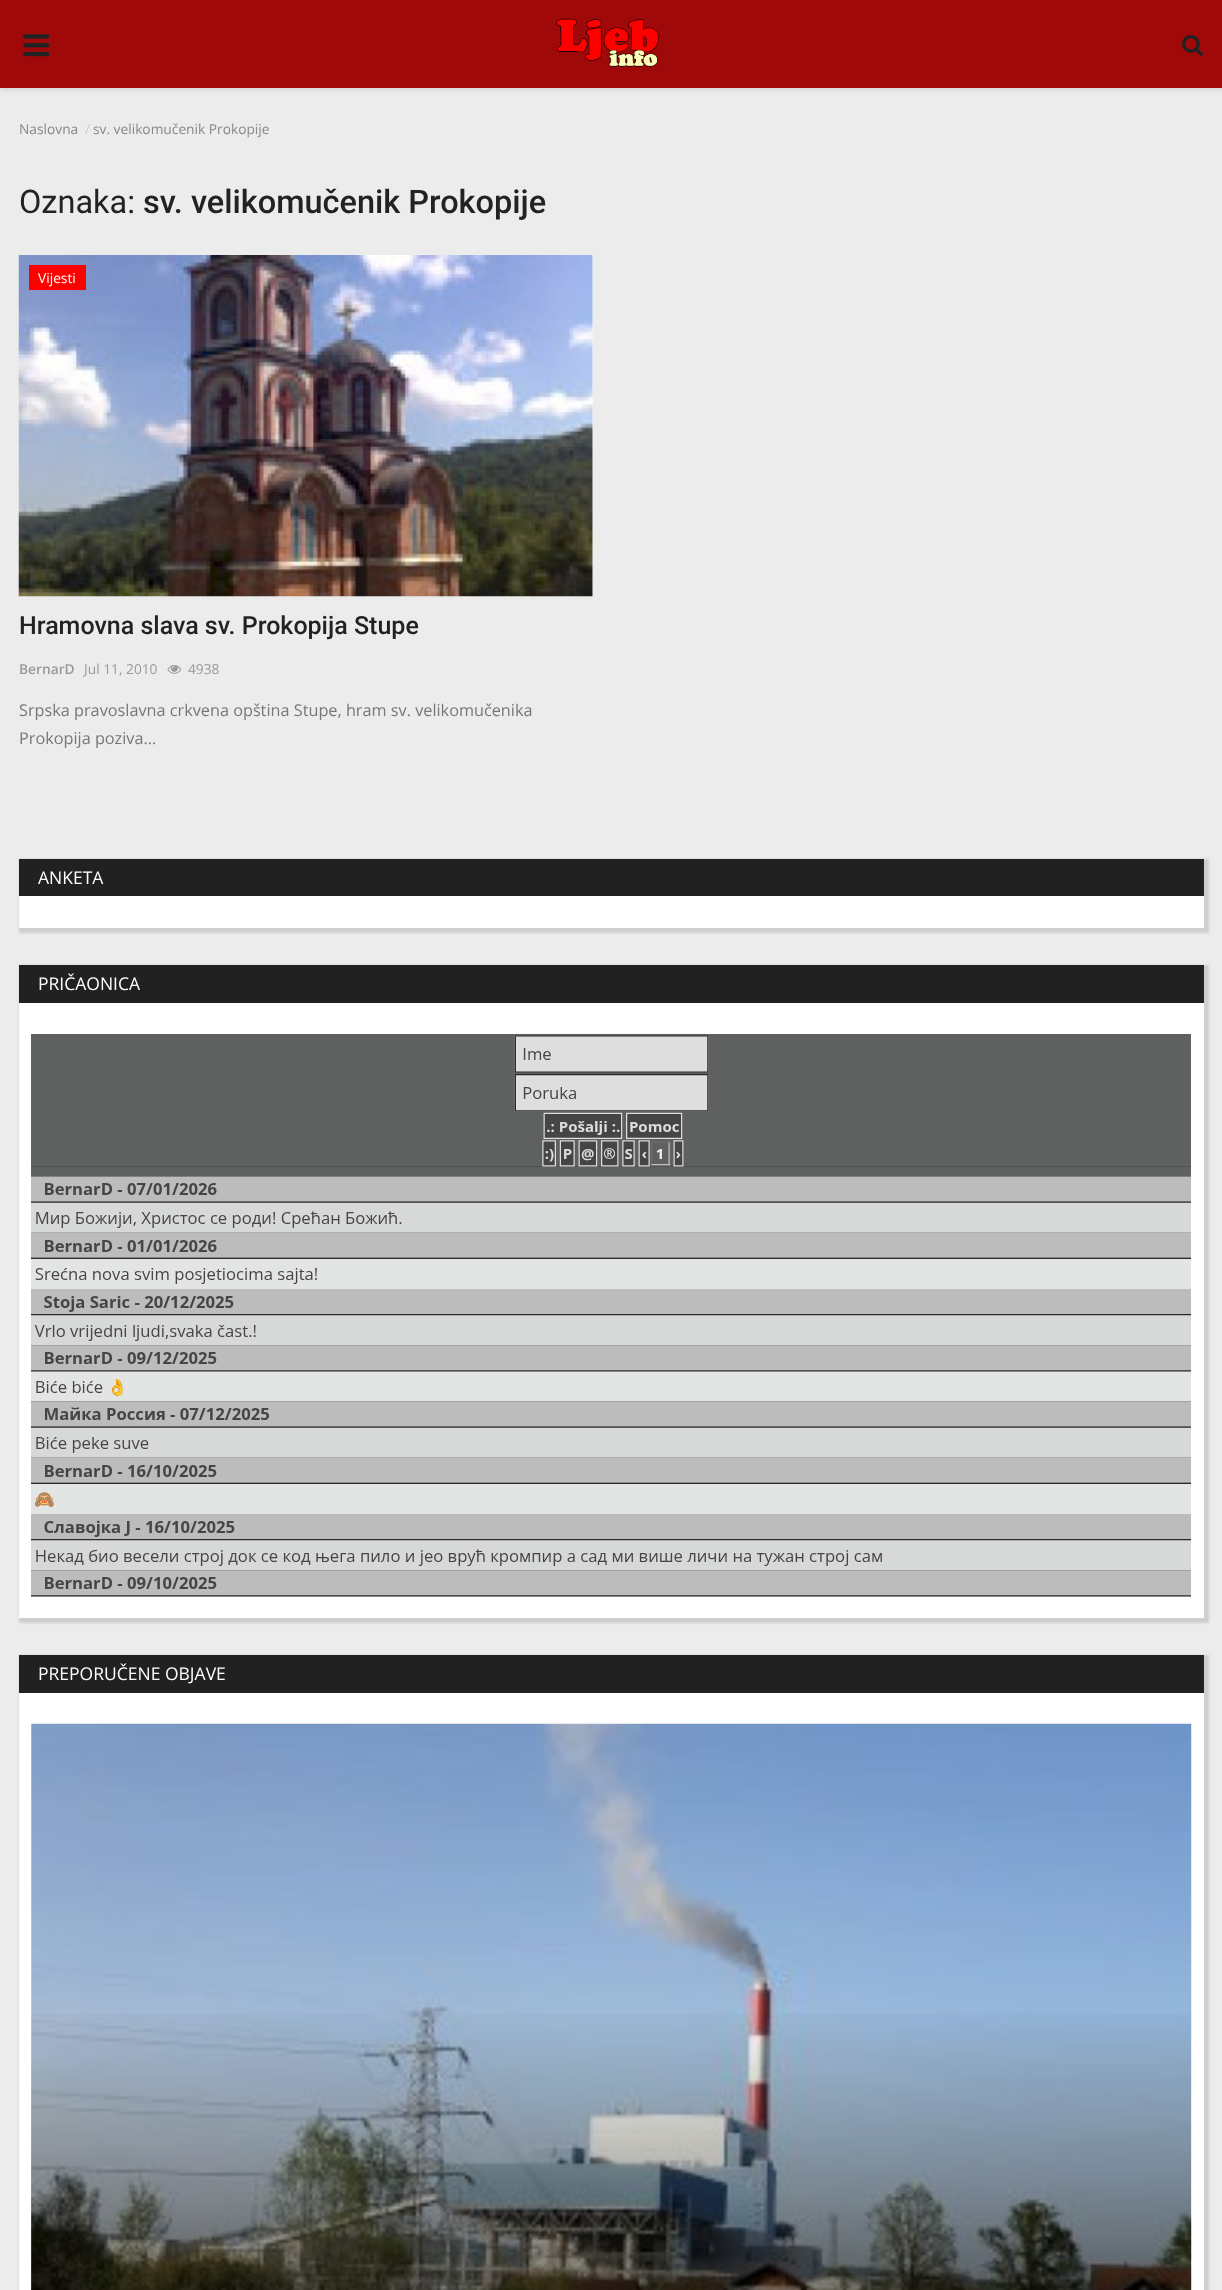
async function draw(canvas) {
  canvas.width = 1222
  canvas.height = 2290
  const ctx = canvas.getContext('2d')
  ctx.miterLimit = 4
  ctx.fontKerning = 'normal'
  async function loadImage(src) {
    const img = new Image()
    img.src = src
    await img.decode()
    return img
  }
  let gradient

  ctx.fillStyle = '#ececec'
  ctx.fillRect(0, 0, 1222, 2290)
  ctx.fillStyle = '#0000001a'
  ctx.filter = 'blur(2.5px)'
  ctx.beginPath()
  ctx.rect(1, 3, 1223, 87)
  ctx.fill()
  ctx.filter = 'none'
  ctx.fillStyle = '#9f0909'
  ctx.fillRect(0, 0, 1222, 88)
  ctx.drawImage(await loadImage('image0.png'), 23, 34, 27, 23)
  ctx.drawImage(await loadImage('image1.png'), 556, 18, 103, 49)
  ctx.drawImage(await loadImage('image2.png'), 1182, 35, 21, 21)
  ctx.font = '13.75px Open Sans'
  ctx.fillStyle = '#888'
  ctx.fillText('Naslovna', 19, 134)
  ctx.fillStyle = '#ccc'
  ctx.fillText('/', 85, 134)
  ctx.fillStyle = '#888'
  ctx.fillText('sv. velikomučenik Prokopije', 93, 134)
  ctx.font = '32.5px Roboto'
  ctx.fillStyle = '#222'
  ctx.fillText('Oznaka:', 19, 213)
  ctx.font = '500 32.5px Roboto'
  ctx.fillText('sv. velikomučenik Prokopije', 143, 213)
  ctx.fillStyle = '#f8f8f8'
  ctx.fillRect(592, 255, 1, 341)
  ctx.drawImage(await loadImage('image3.png'), 18, 255, 575, 342)
  ctx.fillStyle = '#f00'
  ctx.fillRect(29, 265, 57, 25)
  ctx.font = '13.75px Open Sans'
  ctx.fillStyle = '#fff'
  ctx.fillText('Vijesti', 38, 283)
  ctx.font = '500 25px Roboto'
  ctx.fillStyle = '#222'
  ctx.fillText('Hramovna slava sv. Prokopija Stupe', 19, 634)
  ctx.font = '600 13.75px Open Sans'
  ctx.fillStyle = '#999'
  ctx.fillText('BernarD', 19, 674)
  ctx.font = '13.75px Open Sans'
  ctx.fillText('Jul 11, 2010', 84, 674)
  ctx.drawImage(await loadImage('image4.png'), 167, 665, 15, 9)
  ctx.fillText('4938', 188, 674)
  ctx.font = '16.25px Open Sans'
  ctx.fillStyle = '#777'
  ctx.fillText('Srpska pravoslavna crkvena opština Stupe, hram sv. velikomučenika', 19, 716)
  ctx.fillText('Prokopija poziva...', 19, 744)
  ctx.fillStyle = '#cecece'
  ctx.filter = 'blur(1px)'
  ctx.beginPath()
  ctx.rect(19, 859, 1190, 74)
  ctx.fill()
  ctx.filter = 'none'
  ctx.fillStyle = '#fff'
  ctx.fillRect(19, 896, 1185, 32)
  ctx.fillStyle = '#212121'
  ctx.fillRect(19, 859, 1185, 37)
  ctx.font = '17.5px Open Sans'
  ctx.fillStyle = '#fff'
  ctx.fillText('ANKETA', 38, 884)
  ctx.fillStyle = '#cecece'
  ctx.filter = 'blur(1px)'
  ctx.beginPath()
  ctx.rect(19, 965, 1190, 658)
  ctx.fill()
  ctx.filter = 'none'
  ctx.fillStyle = '#fff'
  ctx.fillRect(19, 1003, 1185, 615)
  ctx.fillStyle = '#212121'
  ctx.fillRect(19, 965, 1185, 38)
  ctx.fillStyle = '#fff'
  ctx.fillText('PRIČAONICA', 38, 990)
  ctx.drawImage(await loadImage('image5.png'), 31, 1034, 1160, 563)
  ctx.fillStyle = '#cecece'
  ctx.filter = 'blur(1px)'
  ctx.beginPath()
  ctx.rect(19, 1655, 1190, 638)
  ctx.fill()
  ctx.filter = 'none'
  ctx.fillStyle = '#fff'
  ctx.fillRect(19, 1693, 1185, 597)
  ctx.fillStyle = '#212121'
  ctx.fillRect(19, 1655, 1185, 38)
  ctx.fillStyle = '#fff'
  ctx.fillText('PREPORUČENE OBJAVE', 38, 1680)
  ctx.drawImage(await loadImage('image6.png'), 31, 1723, 1161, 567)
  gradient = ctx.createLinearGradient(611, 2000, 611, 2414)
  gradient.addColorStop(0, '#00000000')
  gradient.addColorStop(0.5, '#00000057')
  gradient.addColorStop(1, '#000000b3')
  ctx.fillStyle = gradient
  ctx.fillRect(31, 2013, 1160, 277)
}

draw(document.querySelector('canvas'))
